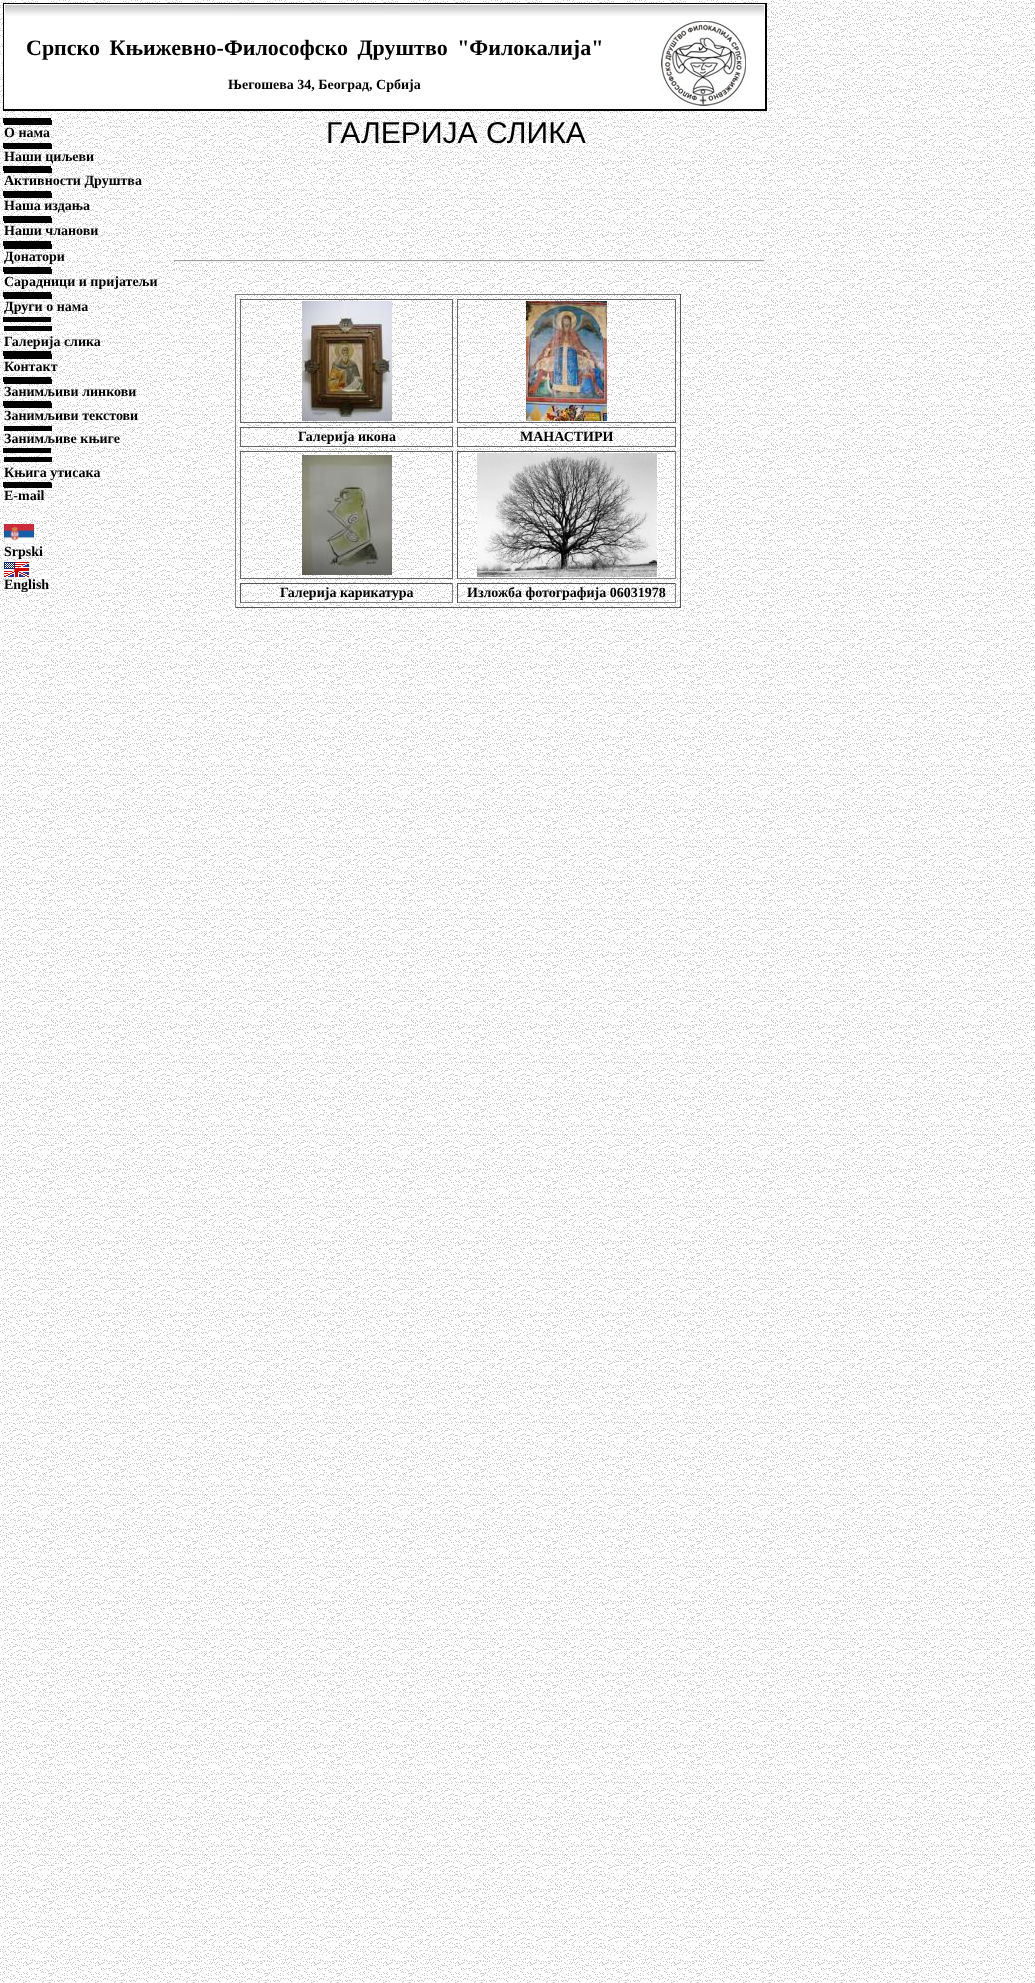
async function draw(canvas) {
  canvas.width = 1035
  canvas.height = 1983
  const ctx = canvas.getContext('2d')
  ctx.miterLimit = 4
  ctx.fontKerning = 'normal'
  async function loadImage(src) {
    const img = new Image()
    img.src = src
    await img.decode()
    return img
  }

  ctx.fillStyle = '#fff'
  ctx.fillRect(0, 0, 1035, 1983)
  ctx.drawImage(await loadImage('image0.png'), 0, 0, 1035, 1983)
  ctx.fillRect(4, 4, 761, 105)
  ctx.fillStyle = '#000'
  ctx.fillRect(3, 3, 764, 1)
  ctx.fillRect(765, 3, 2, 108)
  ctx.fillRect(3, 109, 764, 2)
  ctx.fillRect(3, 3, 1, 108)
  ctx.drawImage(await loadImage('image1.png'), 5, 5, 759, 11)
  ctx.wordSpacing = '4px'
  ctx.font = 'bold 22px Liberation Serif'
  ctx.fillText('Српско Књижевно-Философско Друштво "Филокалија"', 26, 55)
  ctx.wordSpacing = '0px'
  ctx.font = 'bold 14px Liberation Serif'
  ctx.fillText('Његошева 34, Београд, Србија', 228, 89)
  ctx.drawImage(await loadImage('image2.png'), 661, 21, 85, 85)
  ctx.fillRect(3, 118, 48, 5)
  ctx.fillRect(4, 120, 48, 5)
  ctx.fillText('О нама', 4, 137)
  ctx.fillRect(3, 143, 48, 5)
  ctx.fillRect(4, 144, 48, 5)
  ctx.fillText('Наши циљеви', 4, 161)
  ctx.fillRect(3, 166, 48, 5)
  ctx.fillRect(4, 168, 48, 5)
  ctx.fillText('Активности Друштва', 4, 185)
  ctx.fillRect(3, 191, 48, 5)
  ctx.fillRect(4, 193, 48, 5)
  ctx.fillText('Наша издања', 4, 210)
  ctx.fillRect(3, 216, 48, 5)
  ctx.fillRect(4, 218, 48, 5)
  ctx.fillText('Наши чланови', 4, 235)
  ctx.fillRect(3, 241, 48, 5)
  ctx.fillRect(4, 244, 48, 5)
  ctx.fillText('Донатори', 4, 261)
  ctx.fillRect(3, 267, 48, 5)
  ctx.fillRect(4, 269, 48, 5)
  ctx.fillText('Сарадници и пријатељи', 4, 286)
  ctx.fillRect(3, 292, 48, 5)
  ctx.fillRect(4, 294, 48, 5)
  ctx.fillText('Други о нама', 4, 311)
  ctx.fillRect(3, 317, 48, 5)
  ctx.fillRect(4, 326, 48, 5)
  ctx.fillText('Галерија слика', 4, 346)
  ctx.fillRect(3, 351, 48, 5)
  ctx.fillRect(4, 354, 48, 5)
  ctx.fillText('Контакт', 4, 371)
  ctx.fillRect(3, 377, 48, 5)
  ctx.fillRect(4, 379, 48, 5)
  ctx.fillText('Занимљиви линкови', 4, 396)
  ctx.fillRect(3, 401, 48, 5)
  ctx.fillRect(4, 403, 48, 5)
  ctx.fillText('Занимљиви текстови', 4, 420)
  ctx.fillRect(4, 426, 48, 5)
  ctx.fillText('Занимљиве књиге', 4, 443)
  ctx.fillRect(3, 448, 48, 5)
  ctx.fillRect(4, 457, 48, 5)
  ctx.fillText('Књига утисака', 4, 477)
  ctx.fillRect(3, 482, 48, 5)
  ctx.fillRect(4, 483, 48, 5)
  ctx.fillText('E-mail', 4, 500)
  ctx.drawImage(await loadImage('image3.png'), 4, 524, 30, 20)
  ctx.fillText('Srpski', 4, 556)
  ctx.drawImage(await loadImage('image4.png'), 4, 562, 25, 15)
  ctx.fillText('English', 4, 589)
  ctx.font = '30.1px Liberation Sans'
  ctx.fillText('ГАЛЕРИЈА СЛИКА', 326, 143)
  ctx.fillStyle = '#9f9f9f'
  ctx.fillRect(174, 260, 591, 1)
  ctx.fillStyle = '#eee'
  ctx.fillRect(764, 260, 1, 2)
  ctx.fillRect(174, 261, 591, 1)
  ctx.fillStyle = '#9f9f9f'
  ctx.fillRect(174, 260, 1, 2)
  ctx.fillStyle = '#808080'
  ctx.fillRect(235, 294, 446, 1)
  ctx.fillStyle = '#555'
  ctx.fillRect(680, 294, 1, 314)
  ctx.fillRect(235, 607, 446, 1)
  ctx.fillStyle = '#808080'
  ctx.fillRect(235, 294, 1, 314)
  ctx.strokeStyle = '#666'
  ctx.strokeRect(240.5, 299.5, 212, 123)
  ctx.drawImage(await loadImage('image5.png'), 302, 301, 90, 120)
  ctx.strokeRect(457.5, 299.5, 218, 123)
  ctx.drawImage(await loadImage('image6.png'), 526, 301, 81, 120)
  ctx.strokeRect(240.5, 427.5, 212, 19)
  ctx.font = 'bold 14px Liberation Serif'
  ctx.fillStyle = '#000'
  ctx.fillText('Галерија икона', 298, 441)
  ctx.strokeRect(457.5, 427.5, 218, 19)
  ctx.fillText('МАНАСТИРИ', 520, 441)
  ctx.strokeRect(240.5, 451.5, 212, 127)
  ctx.drawImage(await loadImage('image7.png'), 302, 455, 90, 120)
  ctx.fillStyle = '#555'
  ctx.fillRect(457, 451, 219, 1)
  ctx.fillStyle = '#808080'
  ctx.fillRect(675, 451, 1, 128)
  ctx.fillRect(457, 578, 219, 1)
  ctx.fillStyle = '#555'
  ctx.fillRect(457, 451, 1, 128)
  ctx.drawImage(await loadImage('image8.png'), 477, 453, 180, 124)
  ctx.fillRect(240, 583, 213, 1)
  ctx.fillStyle = '#808080'
  ctx.fillRect(452, 583, 1, 20)
  ctx.fillRect(240, 602, 213, 1)
  ctx.fillStyle = '#555'
  ctx.fillRect(240, 583, 1, 20)
  ctx.fillStyle = '#000'
  ctx.fillText('Галерија карикатура', 280, 597)
  ctx.fillStyle = '#555'
  ctx.fillRect(457, 583, 219, 1)
  ctx.fillStyle = '#808080'
  ctx.fillRect(675, 583, 1, 20)
  ctx.fillRect(457, 602, 219, 1)
  ctx.fillStyle = '#555'
  ctx.fillRect(457, 583, 1, 20)
  ctx.fillStyle = '#000'
  ctx.fillText('Изложба фотографија 06031978', 467, 597)
}

draw(document.querySelector('canvas'))
